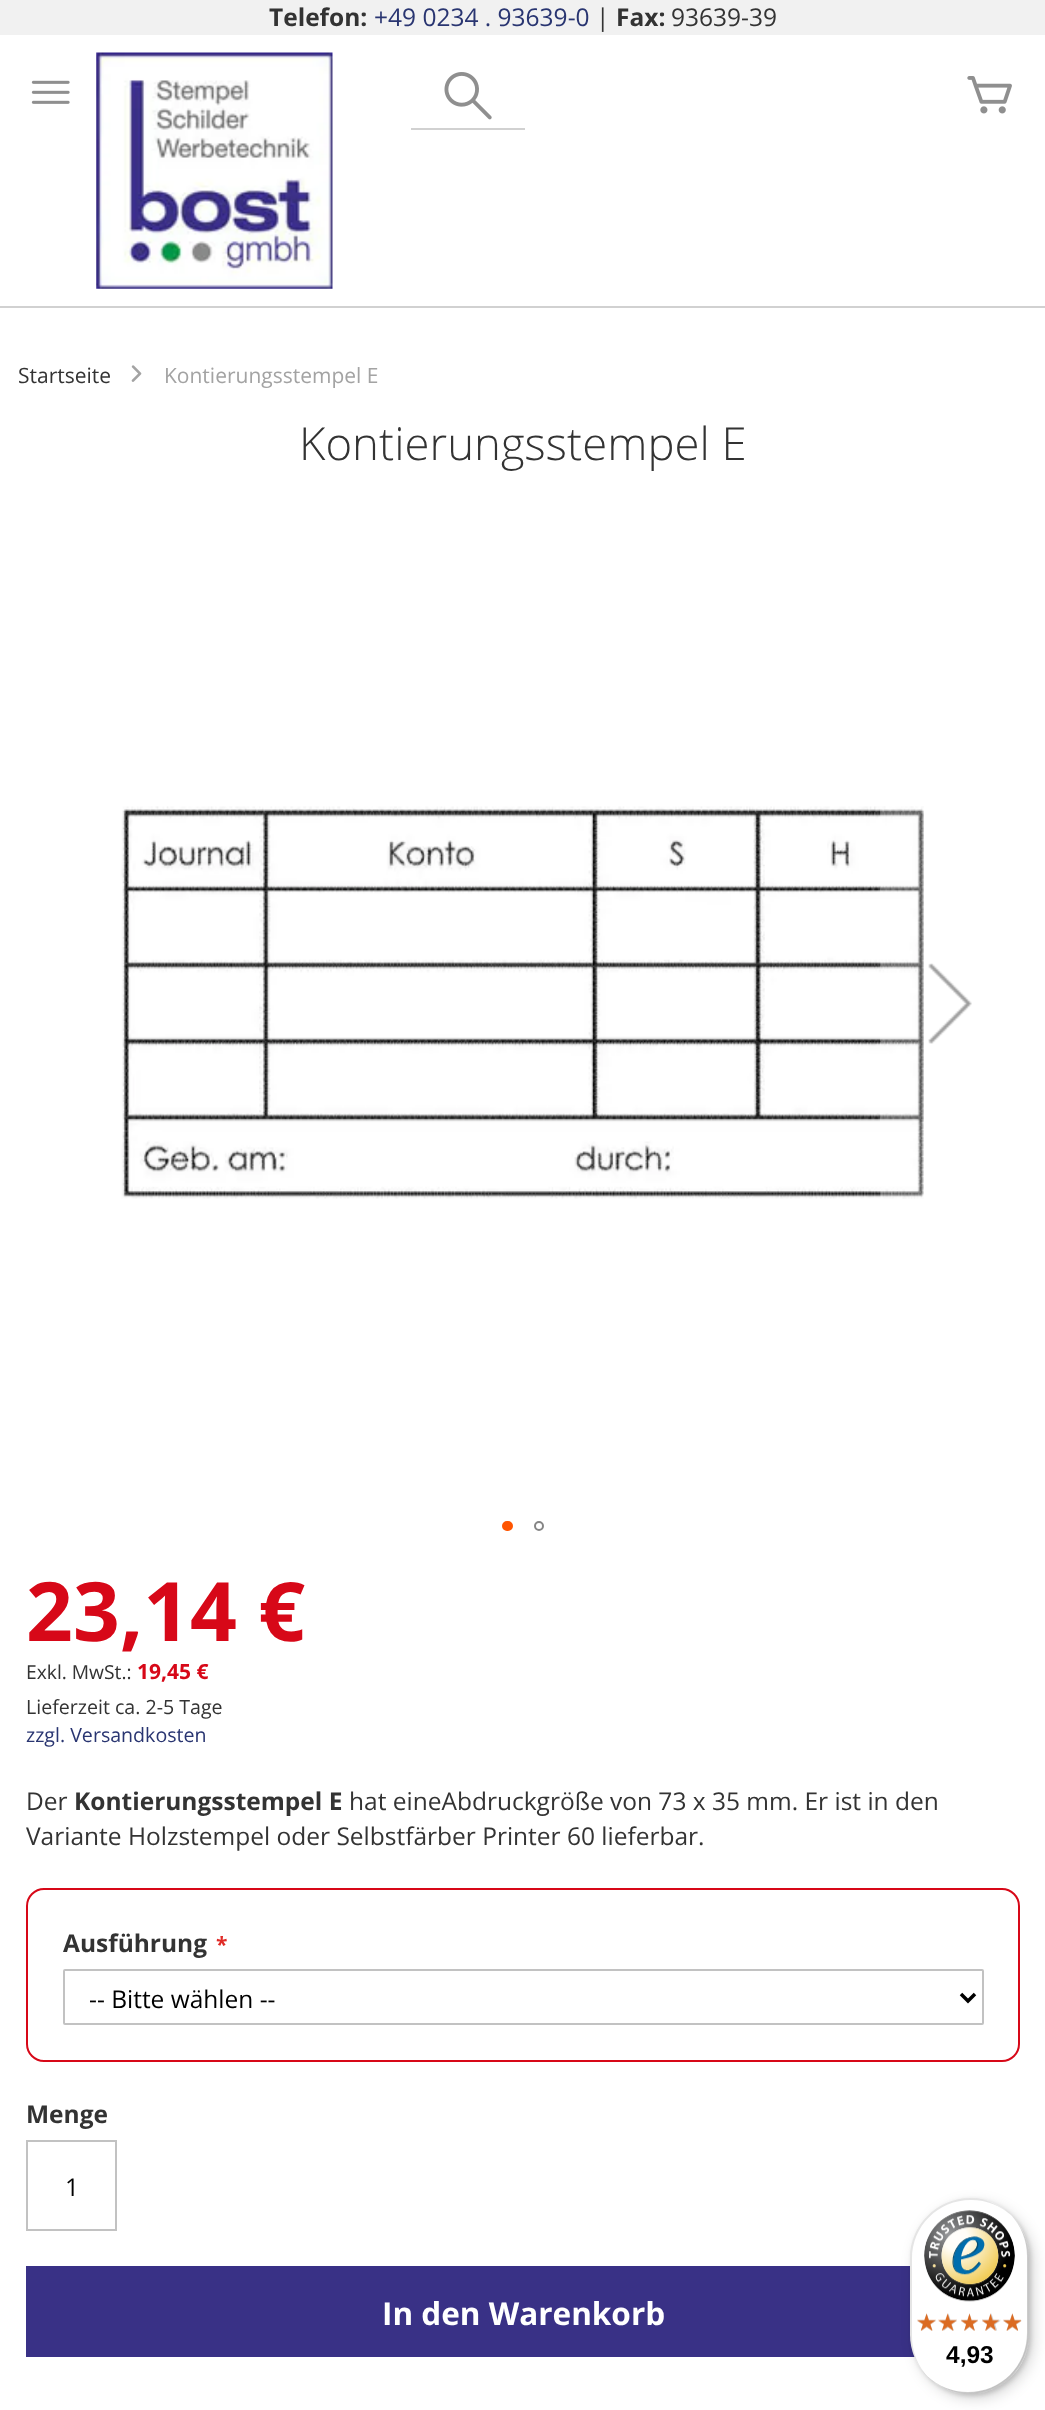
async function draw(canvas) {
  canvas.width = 1045
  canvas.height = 2410
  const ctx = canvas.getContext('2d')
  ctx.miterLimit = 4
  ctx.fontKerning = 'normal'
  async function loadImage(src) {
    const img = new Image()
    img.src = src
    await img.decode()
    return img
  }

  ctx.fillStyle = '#fff'
  ctx.fillRect(0, 0, 1045, 2410)
  ctx.fillStyle = '#d1d1d1'
  ctx.fillRect(0, 306, 1045, 2)
  ctx.fillStyle = '#f1f1f1'
  ctx.fillRect(0, 0, 1045, 35)
  ctx.font = 'bold 24.5px Open Sans'
  ctx.fillStyle = '#333'
  ctx.fillText('Telefon:', 269, 26)
  ctx.font = '24.5px Open Sans'
  ctx.fillStyle = '#293571'
  ctx.fillText('+49 0234 . 93639-0', 374, 26)
  ctx.fillStyle = '#333'
  ctx.fillText('|', 596, 26)
  ctx.font = 'bold 24.5px Open Sans'
  ctx.fillText('Fax:', 616, 26)
  ctx.font = '24.5px Open Sans'
  ctx.fillText('93639-39', 671, 26)
  ctx.drawImage(await loadImage('image0.png'), 31, 80, 39, 24)
  ctx.drawImage(await loadImage('image1.png'), 96, 52, 237, 237)
  ctx.drawImage(await loadImage('image2.png'), 444, 72, 48, 48)
  ctx.fillStyle = '#d1d1d1'
  ctx.fillRect(411, 128, 114, 2)
  ctx.drawImage(await loadImage('image3.png'), 967, 76, 45, 38)
  ctx.font = '21px Open Sans'
  ctx.fillStyle = '#333'
  ctx.fillText('Startseite', 18, 383)
  ctx.drawImage(await loadImage('image4.png'), 131, 365, 11, 17)
  ctx.fillStyle = '#a3a3a3'
  ctx.fillText('Kontierungsstempel E', 164, 383)
  ctx.font = '300 45.5px Open Sans'
  ctx.fillStyle = '#333'
  ctx.fillText('Kontierungsstempel E', 299, 460)
  ctx.drawImage(await loadImage('image5.png'), 121, 806, 803, 393)
  ctx.fillStyle = '#ffffff4d'
  ctx.fillRect(880, 807, 44, 391)
  ctx.drawImage(await loadImage('image6.png'), 928, 963, 44, 81)
  ctx.fillStyle = '#ff5501'
  ctx.beginPath()
  ctx.roundRect(503, 1522, 9, 8, 4)
  ctx.fill()
  ctx.strokeStyle = '#ff5501'
  ctx.lineWidth = 2
  ctx.stroke()
  ctx.beginPath()
  ctx.arc(539, 1526, 4, 0, 2 * Math.PI)
  ctx.strokeStyle = '#858585'
  ctx.stroke()
  ctx.font = 'bold 82px Open Sans'
  ctx.fillStyle = '#d70818'
  ctx.fillText('23,14 €', 26, 1641)
  ctx.font = '19.25px Open Sans'
  ctx.fillStyle = '#333'
  ctx.fillText('Exkl. MwSt.:', 26, 1679)
  ctx.font = 'bold 21px Open Sans'
  ctx.fillStyle = '#d70818'
  ctx.fillText('19,45 €', 137, 1679)
  ctx.font = '19.6px Open Sans'
  ctx.fillStyle = '#333'
  ctx.fillText('Lieferzeit ca. 2-5 Tage', 26, 1714)
  ctx.fillStyle = '#293571'
  ctx.fillText('zzgl. Versandkosten', 26, 1742)
  ctx.font = '24.5px Open Sans'
  ctx.fillStyle = '#333'
  ctx.fillText('Der', 26, 1810)
  ctx.font = 'bold 24.5px Open Sans'
  ctx.fillText('Kontierungsstempel E', 74, 1810)
  ctx.font = '24.5px Open Sans'
  ctx.fillText('hat eineAbdruckgröße von 73 x 35 mm. Er ist in den', 349, 1810)
  ctx.fillText('Variante Holzstempel oder Selbstfärber Printer 60 lieferbar.', 26, 1845)
  ctx.beginPath()
  ctx.roundRect(27, 1889, 992, 172, 17)
  ctx.strokeStyle = '#d70818'
  ctx.stroke()
  ctx.font = 'bold 24.5px Open Sans'
  ctx.fillText('Ausführung', 63, 1952)
  ctx.font = 'bold 21px Open Sans'
  ctx.fillStyle = '#e02b27'
  ctx.fillText('*', 216, 1952)
  ctx.beginPath()
  ctx.roundRect(64, 1970, 919, 54, 1)
  ctx.strokeStyle = '#c2c2c2'
  ctx.stroke()
  ctx.beginPath()
  ctx.moveTo(961, 1994)
  ctx.lineTo(968, 2001)
  ctx.lineTo(975, 1994)
  ctx.strokeStyle = '#000'
  ctx.lineWidth = 3.5
  ctx.stroke()
  ctx.font = '24.5px Open Sans'
  ctx.fillStyle = '#000'
  ctx.fillText('-- Bitte wählen --', 89, 2008)
  ctx.font = 'bold 24.5px Open Sans'
  ctx.fillStyle = '#333'
  ctx.fillText('Menge', 26, 2123)
  ctx.strokeStyle = '#c2c2c2'
  ctx.lineWidth = 2
  ctx.strokeRect(27, 2141, 89, 89)
  ctx.font = '24.5px Open Sans'
  ctx.fillStyle = '#000'
  ctx.fillText('1', 65, 2196)
  ctx.fillStyle = '#393186'
  ctx.fillRect(26, 2266, 889, 91)
  ctx.font = 'bold 31.5px Open Sans'
  ctx.fillStyle = '#fff'
  ctx.fillText('In den Warenkorb', 382, 2325)
  ctx.fillStyle = '#00000026'
  ctx.filter = 'blur(7px)'
  ctx.beginPath()
  ctx.roundRect(915, 2203, 119, 196, 59.5)
  ctx.fill()
  ctx.filter = 'none'
  ctx.filter = 'blur(2px)'
  ctx.beginPath()
  ctx.roundRect(912, 2200, 119, 196, 59.5)
  ctx.fill()
  ctx.filter = 'none'
  ctx.fillStyle = '#fff'
  ctx.beginPath()
  ctx.roundRect(910, 2198, 119, 196, 59.5)
  ctx.fill()
  ctx.fillStyle = '#0000001a'
  ctx.beginPath()
  ctx.moveTo(971, 2200)
  ctx.bezierCurveTo(987, 2200, 1001, 2206, 1012, 2216)
  ctx.bezierCurveTo(1001, 2205, 986, 2198, 970, 2198)
  ctx.bezierCurveTo(937, 2198, 910, 2225, 910, 2258)
  ctx.lineTo(910, 2334)
  ctx.bezierCurveTo(910, 2351, 917, 2366, 928, 2377)
  ctx.bezierCurveTo(918, 2366, 912, 2352, 912, 2336)
  ctx.lineTo(912, 2259)
  ctx.bezierCurveTo(912, 2226, 938, 2200, 971, 2200)
  ctx.closePath()
  ctx.fill()
  ctx.fillStyle = '#00000033'
  ctx.beginPath()
  ctx.moveTo(927, 2376)
  ctx.bezierCurveTo(938, 2387, 953, 2394, 970, 2394)
  ctx.bezierCurveTo(1002, 2394, 1029, 2367, 1029, 2334)
  ctx.lineTo(1029, 2258)
  ctx.bezierCurveTo(1029, 2241, 1022, 2226, 1011, 2215)
  ctx.bezierCurveTo(1021, 2226, 1027, 2240, 1027, 2256)
  ctx.lineTo(1027, 2333)
  ctx.bezierCurveTo(1027, 2366, 1001, 2392, 968, 2392)
  ctx.bezierCurveTo(952, 2392, 938, 2386, 927, 2376)
  ctx.closePath()
  ctx.fill()
  ctx.fillStyle = '#32323233'
  ctx.beginPath()
  ctx.moveTo(921, 2369)
  ctx.bezierCurveTo(932, 2384, 950, 2394, 970, 2394)
  ctx.bezierCurveTo(1002, 2394, 1029, 2367, 1029, 2334)
  ctx.lineTo(1029, 2258)
  ctx.bezierCurveTo(1029, 2238, 1019, 2220, 1004, 2209)
  ctx.bezierCurveTo(1019, 2220, 1028, 2237, 1028, 2256)
  ctx.lineTo(1028, 2333)
  ctx.bezierCurveTo(1028, 2366, 1001, 2393, 968, 2393)
  ctx.bezierCurveTo(949, 2393, 932, 2384, 921, 2369)
  ctx.closePath()
  ctx.fill()
  ctx.fillStyle = '#ffffff4d'
  ctx.beginPath()
  ctx.moveTo(923, 2371)
  ctx.bezierCurveTo(933, 2385, 950, 2394, 970, 2394)
  ctx.bezierCurveTo(1002, 2394, 1029, 2367, 1029, 2334)
  ctx.lineTo(1029, 2258)
  ctx.bezierCurveTo(1029, 2238, 1020, 2221, 1006, 2211)
  ctx.bezierCurveTo(1019, 2222, 1028, 2238, 1028, 2257)
  ctx.lineTo(1028, 2334)
  ctx.bezierCurveTo(1028, 2366, 1001, 2393, 969, 2393)
  ctx.bezierCurveTo(950, 2393, 934, 2384, 923, 2371)
  ctx.closePath()
  ctx.fill()
  ctx.drawImage(await loadImage('image7.png'), 924, 2210, 91, 92)
  ctx.drawImage(await loadImage('image8.png'), 917, 2314, 19, 17)
  ctx.drawImage(await loadImage('image9.png'), 940, 2313, 17, 18)
  ctx.drawImage(await loadImage('image10.png'), 961, 2314, 17, 17)
  ctx.drawImage(await loadImage('image11.png'), 982, 2313, 19, 18)
  ctx.drawImage(await loadImage('image12.png'), 1003, 2314, 19, 17)
  ctx.drawImage(await loadImage('image13.png'), 917, 2313, 19, 18)
  ctx.drawImage(await loadImage('image14.png'), 938, 2313, 19, 18)
  ctx.drawImage(await loadImage('image15.png'), 961, 2313, 17, 18)
  ctx.drawImage(await loadImage('image16.png'), 982, 2313, 17, 18)
  ctx.drawImage(await loadImage('image17.png'), 1003, 2313, 18, 18)
  ctx.font = 'bold 24.5px Liberation Sans'
  ctx.fillStyle = '#000'
  ctx.fillText('4,93', 946, 2363)
}

draw(document.querySelector('canvas'))
